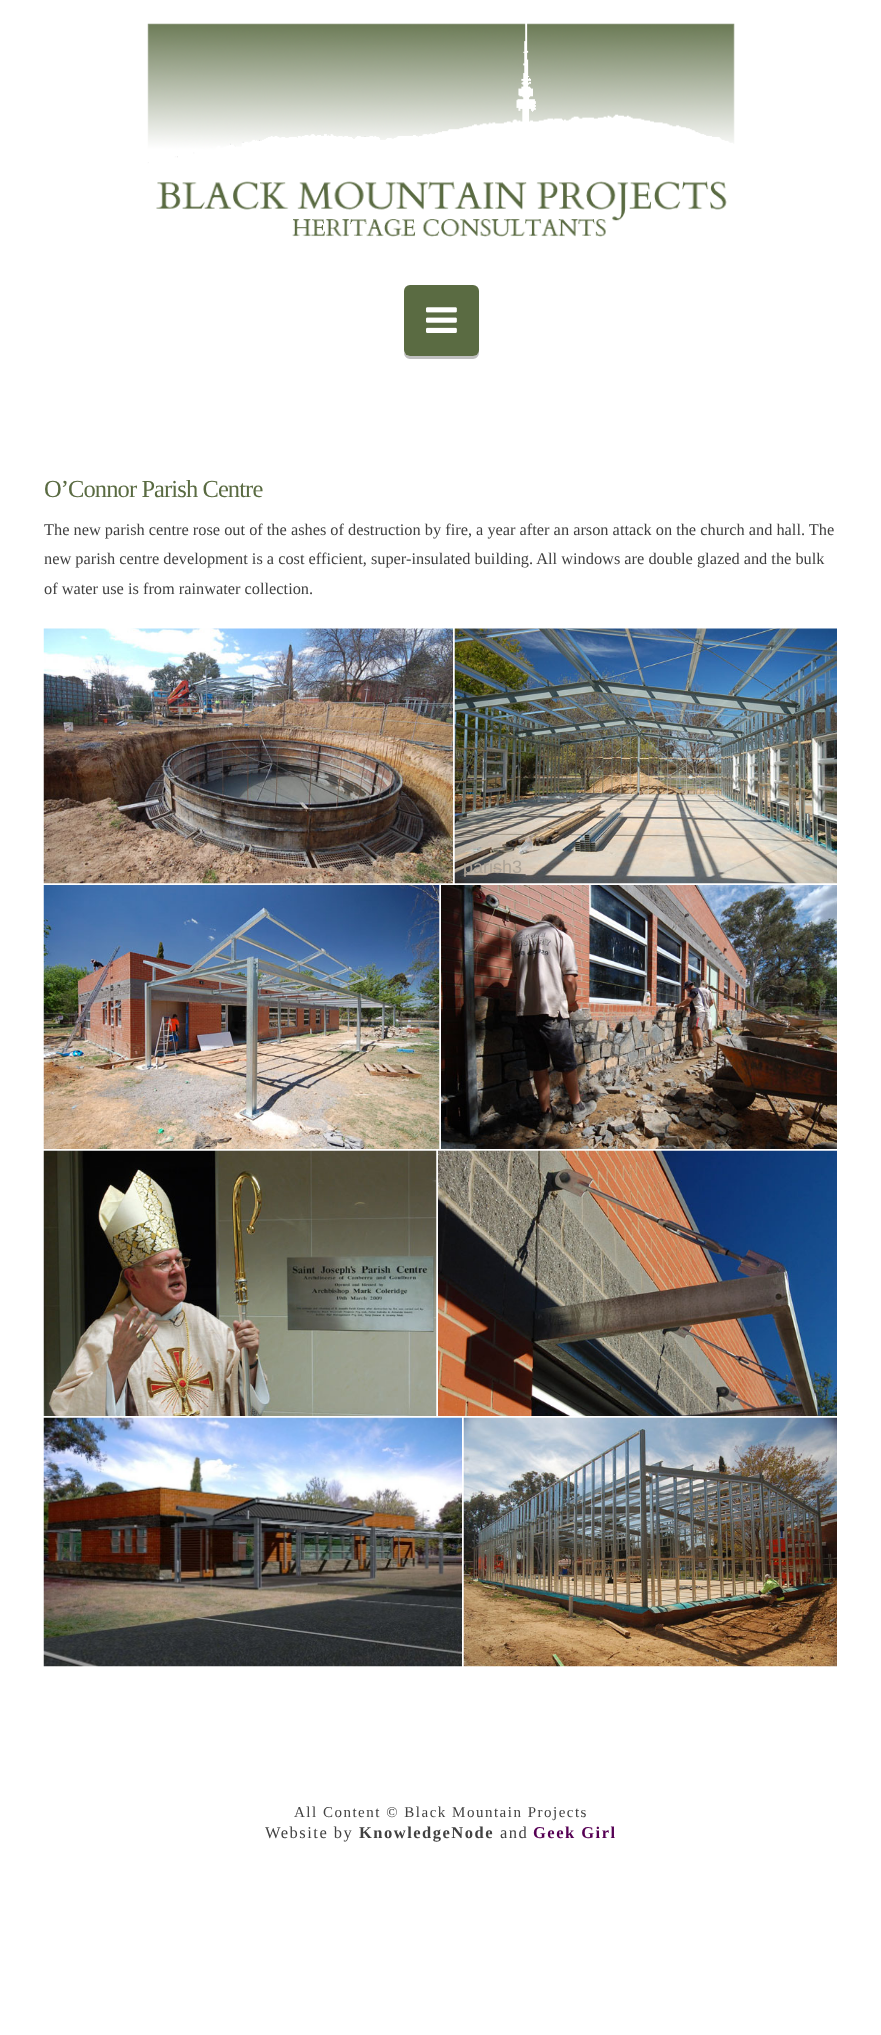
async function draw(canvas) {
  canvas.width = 881
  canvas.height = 2035
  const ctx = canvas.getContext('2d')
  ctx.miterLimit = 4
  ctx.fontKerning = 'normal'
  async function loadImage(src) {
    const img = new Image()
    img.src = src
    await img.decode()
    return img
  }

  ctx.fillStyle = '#fff'
  ctx.fillRect(0, 0, 881, 2035)
  ctx.drawImage(await loadImage('image0.png'), 147, 23, 588, 214)
  ctx.fillStyle = '#bfbfbf'
  ctx.beginPath()
  ctx.moveTo(404, 352)
  ctx.lineTo(404, 353)
  ctx.bezierCurveTo(404, 356, 407, 359, 410, 359)
  ctx.lineTo(473, 359)
  ctx.bezierCurveTo(476, 359, 479, 356, 479, 353)
  ctx.lineTo(479, 294)
  ctx.lineTo(478, 292)
  ctx.lineTo(478, 350)
  ctx.bezierCurveTo(478, 353, 476, 356, 472, 356)
  ctx.lineTo(410, 356)
  ctx.bezierCurveTo(407, 356, 405, 354, 404, 352)
  ctx.closePath()
  ctx.fill()
  ctx.fillStyle = '#5a6b42'
  ctx.beginPath()
  ctx.roundRect(404, 285, 75, 71, 6)
  ctx.fill()
  ctx.drawImage(await loadImage('image1.png'), 426, 307, 31, 26)
  ctx.letterSpacing = '-0.9px'
  ctx.font = '24.5px Liberation Serif'
  ctx.fillText('O’Connor Parish Centre', 44, 497)
  ctx.letterSpacing = '0px'
  ctx.font = '16.35px Liberation Serif'
  ctx.fillStyle = '#414141'
  ctx.fillText('The new parish centre rose out of the ashes of destruction by fire, a year after an arson attack on the church and hall. The', 44, 535)
  ctx.fillText('new parish centre development is a cost efficient, super-insulated building. All windows are double glazed and the bulk', 44, 564)
  ctx.fillText('of water use is from rainwater collection.', 44, 594)
  ctx.drawImage(await loadImage('image2.png'), 43, 628, 410, 256)
  ctx.drawImage(await loadImage('image3.png'), 454, 628, 383, 256)
  ctx.font = '18px Liberation Sans'
  ctx.fillStyle = '#aba296'
  ctx.fillText('parish3', 463, 873)
  ctx.drawImage(await loadImage('image4.png'), 43, 885, 397, 264)
  ctx.drawImage(await loadImage('image5.png'), 441, 885, 396, 264)
  ctx.drawImage(await loadImage('image6.png'), 43, 1150, 394, 266)
  ctx.drawImage(await loadImage('image7.png'), 438, 1150, 399, 266)
  ctx.drawImage(await loadImage('image8.png'), 43, 1417, 419, 250)
  ctx.drawImage(await loadImage('image9.png'), 463, 1417, 374, 250)
  ctx.letterSpacing = '1.5px'
  ctx.font = '15px Liberation Serif'
  ctx.fillStyle = '#414141'
  ctx.fillText('All Content © Black Mountain Projects', 294, 1817)
  ctx.font = '16.5px Liberation Serif'
  ctx.fillText('Website by', 265, 1838)
  ctx.font = 'bold 16.5px Liberation Serif'
  ctx.fillText('KnowledgeNode', 359, 1838)
  ctx.font = '16.5px Liberation Serif'
  ctx.fillText('and', 500, 1838)
  ctx.font = 'bold 16.5px Liberation Serif'
  ctx.fillStyle = '#560054'
  ctx.fillText('Geek Girl', 533, 1838)
}

draw(document.querySelector('canvas'))
